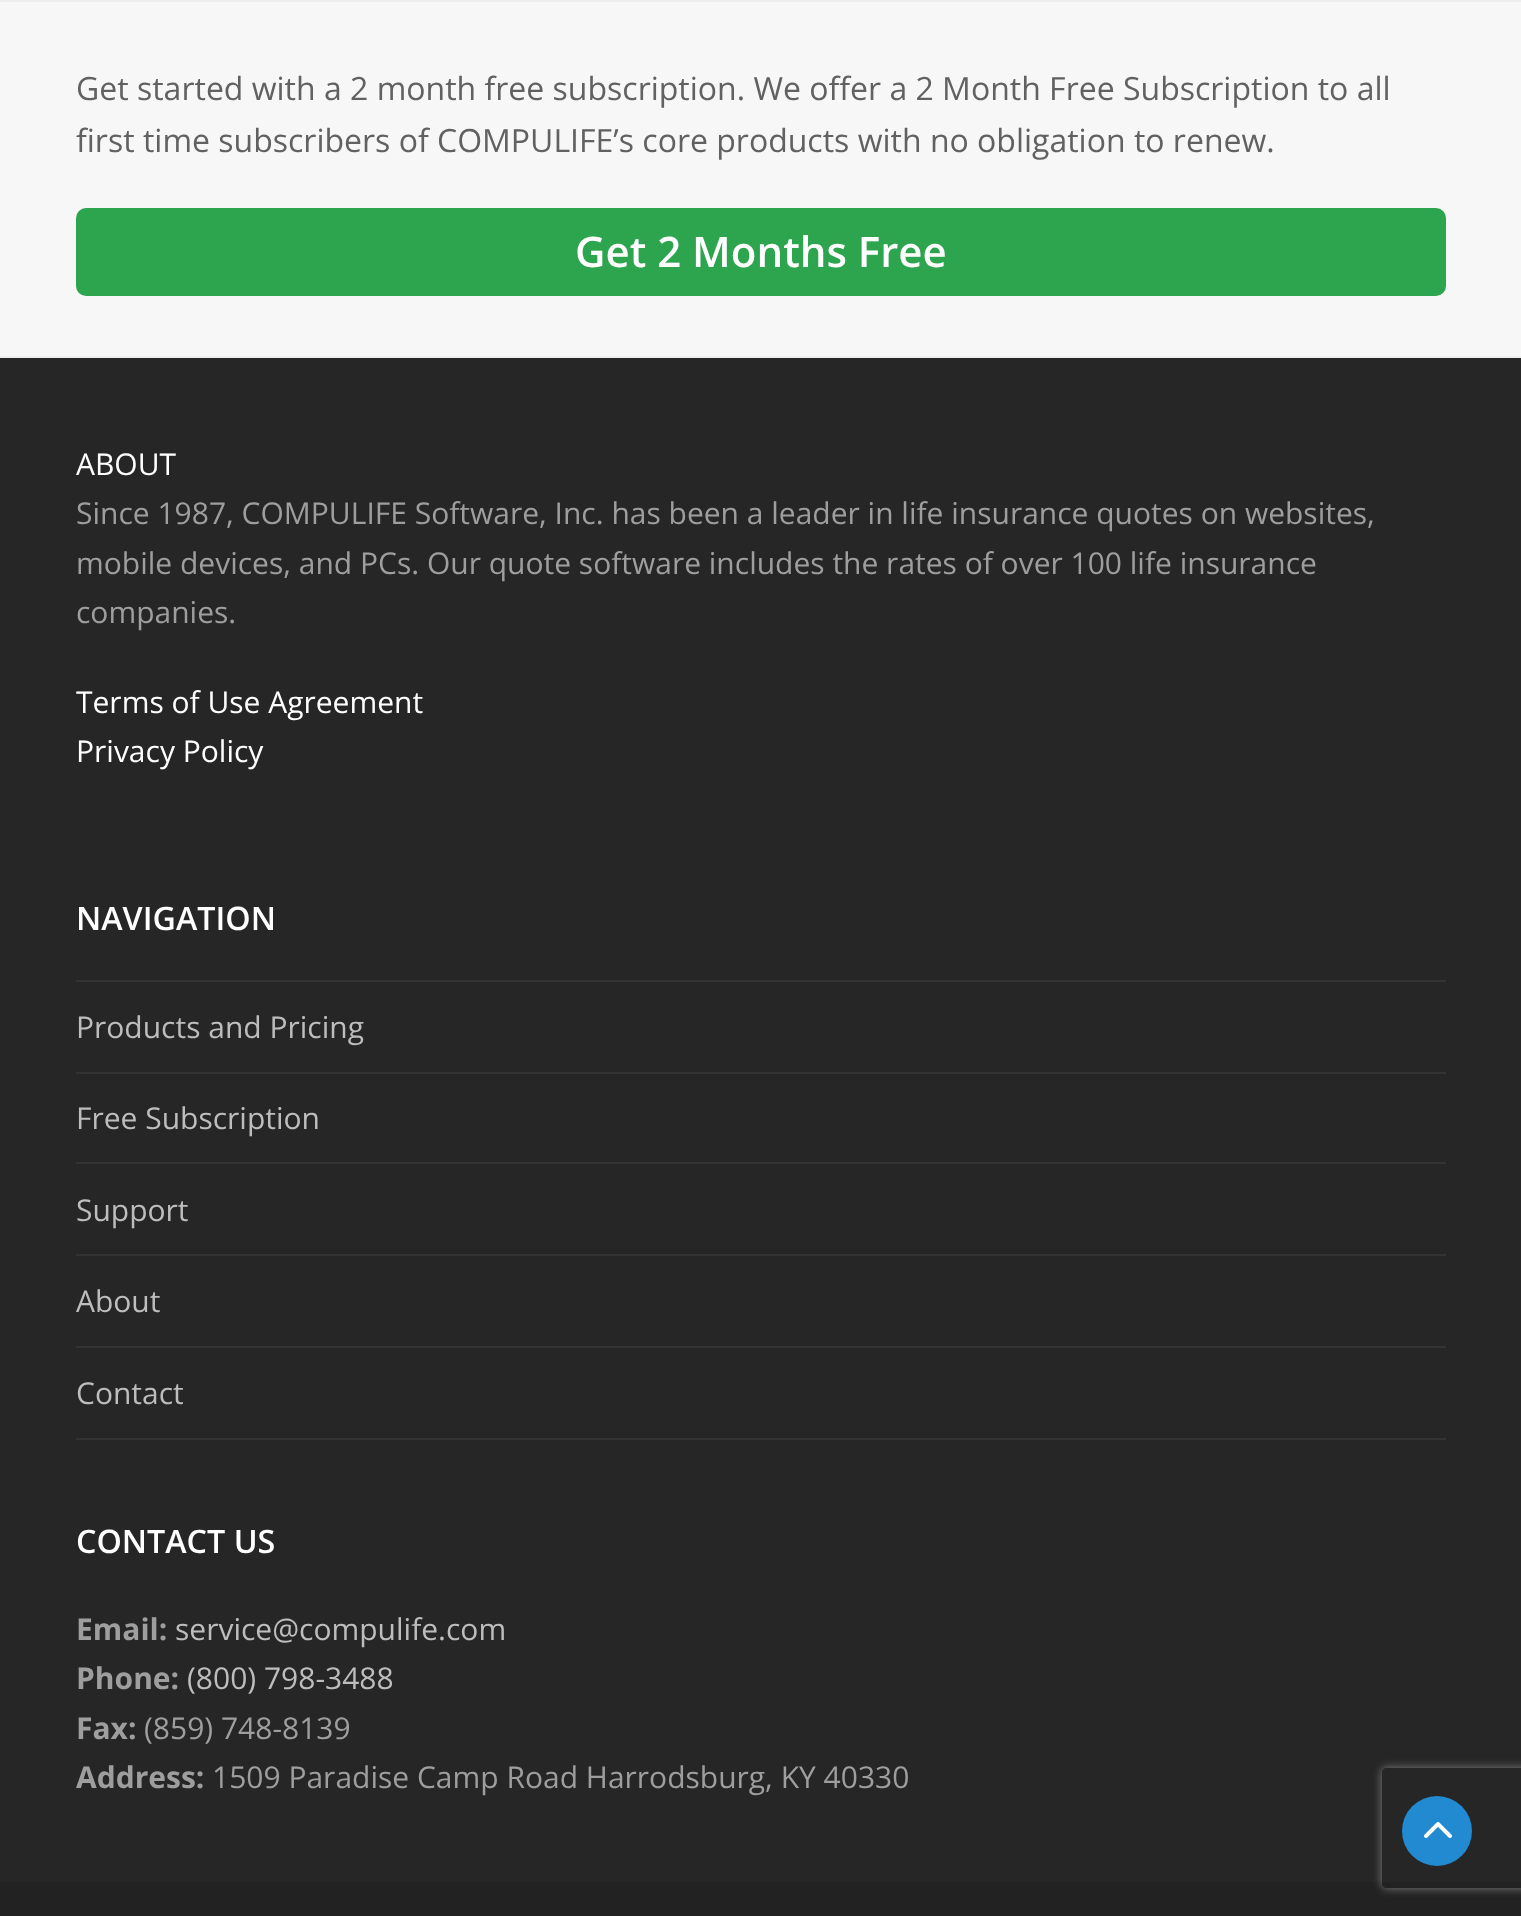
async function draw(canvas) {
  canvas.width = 1521
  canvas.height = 1916
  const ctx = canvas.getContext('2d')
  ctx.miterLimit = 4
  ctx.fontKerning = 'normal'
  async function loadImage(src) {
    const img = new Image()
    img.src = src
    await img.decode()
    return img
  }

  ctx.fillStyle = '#f7f7f7'
  ctx.fillRect(0, 0, 1521, 1916)
  ctx.fillStyle = '#eee'
  ctx.fillRect(0, 0, 1521, 2)
  ctx.fillRect(0, 356, 1521, 2)
  ctx.font = '32px Open Sans'
  ctx.fillStyle = '#616161'
  ctx.fillText('Get started with a 2 month free subscription. We offer a 2 Month Free Subscription to all', 76, 100)
  ctx.fillText('first time subscribers of COMPULIFE’s core products with no obligation to renew.', 76, 152)
  ctx.fillStyle = '#2da54e'
  ctx.beginPath()
  ctx.roundRect(76, 208, 1370, 88, 10)
  ctx.fill()
  ctx.font = '600 42px Open Sans'
  ctx.fillStyle = '#fff'
  ctx.fillText('Get 2 Months Free', 575, 267)
  ctx.fillStyle = '#262626'
  ctx.fillRect(0, 358, 1521, 1524)
  ctx.font = '30px Open Sans'
  ctx.fillStyle = '#fff'
  ctx.fillText('ABOUT', 76, 475)
  ctx.fillStyle = '#9e9e9e'
  ctx.fillText('Since 1987, COMPULIFE Software, Inc. has been a leader in life insurance quotes on websites,', 76, 524)
  ctx.fillText('mobile devices, and PCs. Our quote software includes the rates of over 100 life insurance', 76, 574)
  ctx.fillText('companies.', 76, 623)
  ctx.fillStyle = '#fff'
  ctx.fillText('Terms of Use Agreement', 76, 713)
  ctx.fillText('Privacy Policy', 76, 762)
  ctx.font = '600 32.25px Open Sans'
  ctx.fillText('NAVIGATION', 76, 930)
  ctx.fillStyle = '#333'
  ctx.fillRect(76, 980, 1370, 2)
  ctx.fillRect(76, 1072, 1370, 2)
  ctx.font = '30px Open Sans'
  ctx.fillStyle = '#bdbdbd'
  ctx.fillText('Products and Pricing', 76, 1038)
  ctx.fillStyle = '#333'
  ctx.fillRect(76, 1162, 1370, 2)
  ctx.fillStyle = '#bdbdbd'
  ctx.fillText('Free Subscription', 76, 1129)
  ctx.fillStyle = '#333'
  ctx.fillRect(76, 1254, 1370, 2)
  ctx.fillStyle = '#bdbdbd'
  ctx.fillText('Support', 76, 1221)
  ctx.fillStyle = '#333'
  ctx.fillRect(76, 1346, 1370, 2)
  ctx.fillStyle = '#bdbdbd'
  ctx.fillText('About', 76, 1312)
  ctx.fillStyle = '#333'
  ctx.fillRect(76, 1438, 1370, 2)
  ctx.fillStyle = '#bdbdbd'
  ctx.fillText('Contact', 76, 1404)
  ctx.font = '600 32.25px Open Sans'
  ctx.fillStyle = '#fff'
  ctx.fillText('CONTACT US', 76, 1553)
  ctx.font = 'bold 30px Open Sans'
  ctx.fillStyle = '#9e9e9e'
  ctx.fillText('Email:', 76, 1640)
  ctx.font = '30px Open Sans'
  ctx.fillStyle = '#bdbdbd'
  ctx.fillText('service@compulife.com', 175, 1640)
  ctx.font = 'bold 30px Open Sans'
  ctx.fillStyle = '#9e9e9e'
  ctx.fillText('Phone:', 76, 1689)
  ctx.font = '30px Open Sans'
  ctx.fillStyle = '#bdbdbd'
  ctx.fillText('(800) 798-3488', 187, 1689)
  ctx.font = 'bold 30px Open Sans'
  ctx.fillStyle = '#9e9e9e'
  ctx.fillText('Fax:', 76, 1739)
  ctx.font = '30px Open Sans'
  ctx.fillText('(859) 748-8139', 144, 1739)
  ctx.font = 'bold 30px Open Sans'
  ctx.fillText('Address:', 76, 1788)
  ctx.font = '30px Open Sans'
  ctx.fillText('1509 Paradise Camp Road Harrodsburg, KY 40330', 212, 1788)
  ctx.fillStyle = '#222'
  ctx.fillRect(0, 1882, 1521, 34)
  ctx.save()
  ctx.beginPath()
  ctx.moveTo(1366, 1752)
  ctx.lineTo(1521, 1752)
  ctx.lineTo(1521, 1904)
  ctx.lineTo(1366, 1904)
  ctx.closePath()
  ctx.moveTo(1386, 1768)
  ctx.lineTo(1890, 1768)
  ctx.bezierCurveTo(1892, 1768, 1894, 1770, 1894, 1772)
  ctx.lineTo(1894, 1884)
  ctx.bezierCurveTo(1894, 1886, 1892, 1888, 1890, 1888)
  ctx.lineTo(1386, 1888)
  ctx.bezierCurveTo(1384, 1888, 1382, 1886, 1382, 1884)
  ctx.lineTo(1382, 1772)
  ctx.bezierCurveTo(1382, 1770, 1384, 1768, 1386, 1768)
  ctx.closePath()
  ctx.clip('evenodd')
  ctx.fillStyle = '#808080'
  ctx.filter = 'blur(5px)'
  ctx.beginPath()
  ctx.roundRect(1382, 1768, 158, 120, 4)
  ctx.fill()
  ctx.filter = 'none'
  ctx.restore()
  ctx.fillStyle = '#218ad1'
  ctx.beginPath()
  ctx.arc(1437, 1831, 35, 0, 2 * Math.PI)
  ctx.fill()
  ctx.drawImage(await loadImage('image0.png'), 1424, 1822, 28, 16)
}

draw(document.querySelector('canvas'))
